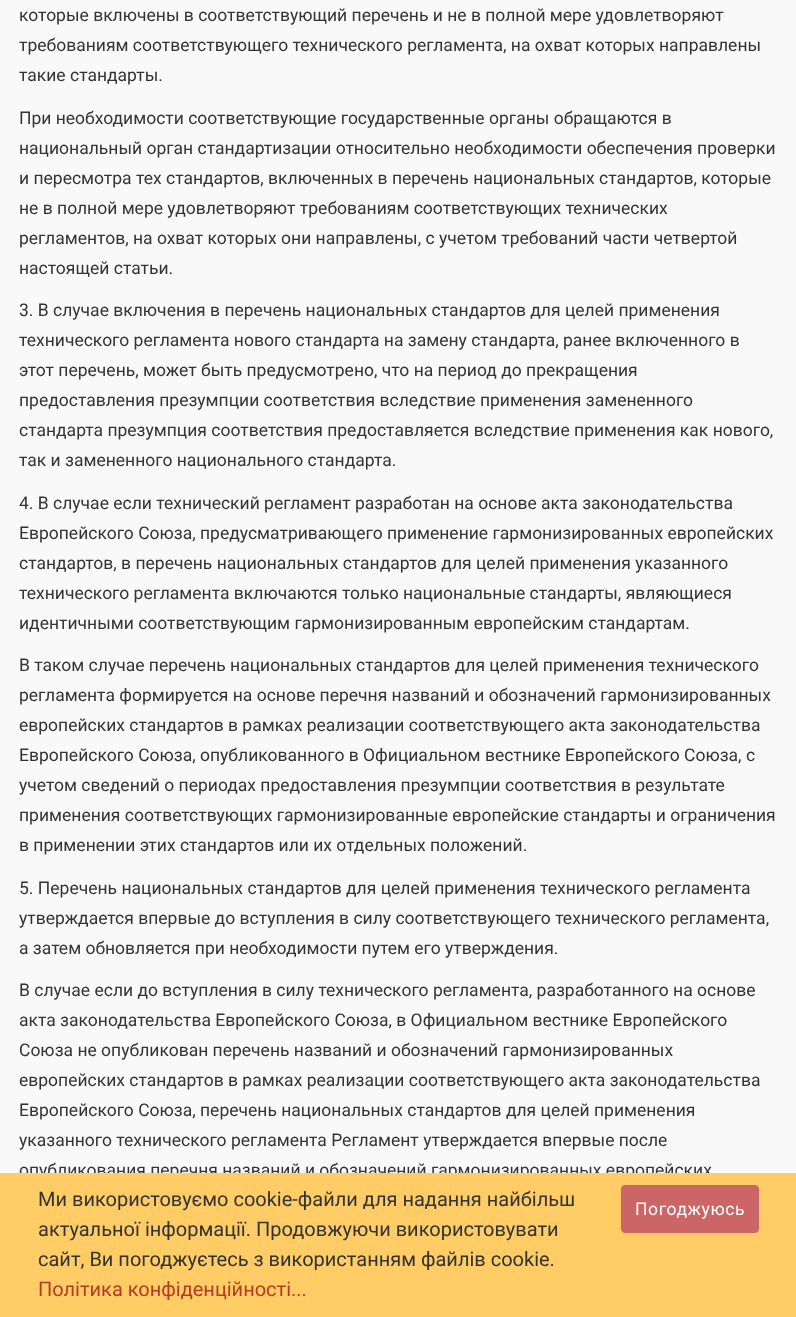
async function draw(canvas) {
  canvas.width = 796
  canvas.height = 1317
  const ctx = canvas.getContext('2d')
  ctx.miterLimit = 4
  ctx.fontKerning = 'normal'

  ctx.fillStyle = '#f9f9f9'
  ctx.fillRect(0, 0, 796, 1317)
  ctx.font = '17.5px Roboto'
  ctx.fillStyle = '#333'
  ctx.fillText('которые включены в соответствующий перечень и не в полной мере удовлетворяют', 19, 21)
  ctx.fillText('требованиям соответствующего технического регламента, на охват которых направлены', 19, 51)
  ctx.fillText('такие стандарты.', 19, 81)
  ctx.fillText('При необходимости соответствующие государственные органы обращаются в', 19, 124)
  ctx.fillText('национальный орган стандартизации относительно необходимости обеспечения проверки', 19, 154)
  ctx.fillText('и пересмотра тех стандартов, включенных в перечень национальных стандартов, которые', 19, 184)
  ctx.fillText('не в полной мере удовлетворяют требованиям соответствующих технических', 19, 214)
  ctx.fillText('регламентов, на охват которых они направлены, с учетом требований части четвертой', 19, 244)
  ctx.fillText('настоящей статьи.', 19, 274)
  ctx.fillText('3. В случае включения в перечень национальных стандартов для целей применения', 19, 316)
  ctx.fillText('технического регламента нового стандарта на замену стандарта, ранее включенного в', 19, 346)
  ctx.fillText('этот перечень, может быть предусмотрено, что на период до прекращения', 19, 376)
  ctx.fillText('предоставления презумпции соответствия вследствие применения замененного', 19, 406)
  ctx.fillText('стандарта презумпция соответствия предоставляется вследствие применения как нового,', 19, 436)
  ctx.fillText('так и замененного национального стандарта.', 19, 466)
  ctx.fillText('4. В случае если технический регламент разработан на основе акта законодательства', 19, 509)
  ctx.fillText('Европейского Союза, предусматривающего применение гармонизированных европейских', 19, 539)
  ctx.fillText('стандартов, в перечень национальных стандартов для целей применения указанного', 19, 569)
  ctx.fillText('технического регламента включаются только национальные стандарты, являющиеся', 19, 599)
  ctx.fillText('идентичными соответствующим гармонизированным европейским стандартам.', 19, 629)
  ctx.fillText('В таком случае перечень национальных стандартов для целей применения технического', 19, 671)
  ctx.fillText('регламента формируется на основе перечня названий и обозначений гармонизированных', 19, 701)
  ctx.fillText('европейских стандартов в рамках реализации соответствующего акта законодательства', 19, 731)
  ctx.fillText('Европейского Союза, опубликованного в Официальном вестнике Европейского Союза, с', 19, 761)
  ctx.fillText('учетом сведений о периодах предоставления презумпции соответствия в результате', 19, 791)
  ctx.fillText('применения соответствующих гармонизированные европейские стандарты и ограничения', 19, 821)
  ctx.fillText('в применении этих стандартов или их отдельных положений.', 19, 851)
  ctx.fillText('5. Перечень национальных стандартов для целей применения технического регламента', 19, 894)
  ctx.fillText('утверждается впервые до вступления в силу соответствующего технического регламента,', 19, 924)
  ctx.fillText('а затем обновляется при необходимости путем его утверждения.', 19, 954)
  ctx.fillText('В случае если до вступления в силу технического регламента, разработанного на основе', 19, 996)
  ctx.fillText('акта законодательства Европейского Союза, в Официальном вестнике Европейского', 19, 1026)
  ctx.fillText('Союза не опубликован перечень названий и обозначений гармонизированных', 19, 1056)
  ctx.fillText('европейских стандартов в рамках реализации соответствующего акта законодательства', 19, 1086)
  ctx.fillText('Европейского Союза, перечень национальных стандартов для целей применения', 19, 1116)
  ctx.fillText('указанного технического регламента Регламент утверждается впервые после', 19, 1146)
  ctx.fillText('опубликования перечня названий и обозначений гармонизированных европейских', 19, 1176)
  ctx.fillStyle = '#fc6'
  ctx.fillRect(0, 1173, 796, 144)
  ctx.font = '20px Roboto'
  ctx.fillStyle = '#333'
  ctx.fillText('Ми використовуємо cookie-файли для надання найбільш', 38, 1206)
  ctx.fillText('актуальної інформації. Продовжуючи використовувати', 38, 1236)
  ctx.fillText('сайт, Ви погоджуєтесь з використанням файлів cookie.', 38, 1266)
  ctx.fillStyle = '#b33c22'
  ctx.fillText('Політика конфіденційності...', 38, 1296)
  ctx.fillStyle = '#c66'
  ctx.beginPath()
  ctx.roundRect(621.5, 1185.5, 137, 47, 3.5)
  ctx.fill()
  ctx.strokeStyle = '#c66'
  ctx.stroke()
  ctx.letterSpacing = '0.6px'
  ctx.font = '17.5px Roboto'
  ctx.fillStyle = '#fff'
  ctx.fillText('Погоджуюсь', 635, 1215)
}

draw(document.querySelector('canvas'))
